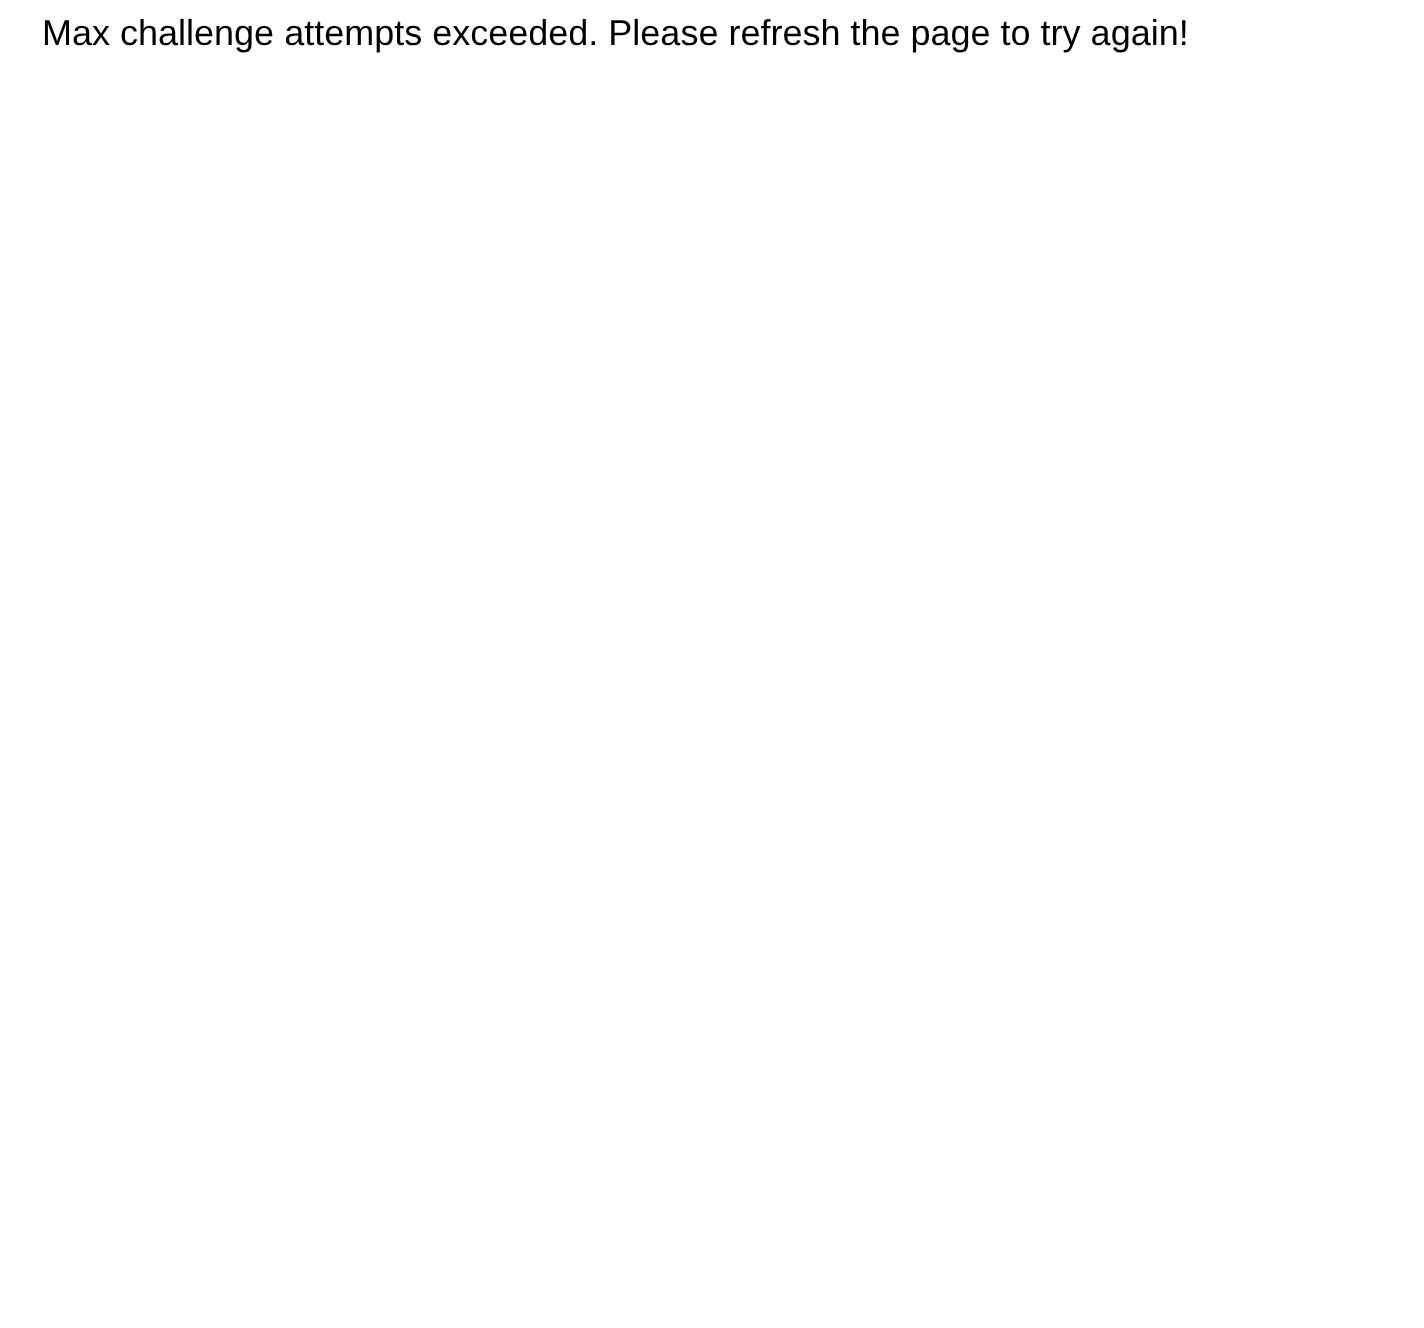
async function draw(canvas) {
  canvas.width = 1424
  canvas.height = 1328
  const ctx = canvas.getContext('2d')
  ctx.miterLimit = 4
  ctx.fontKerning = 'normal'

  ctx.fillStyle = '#fff'
  ctx.fillRect(0, 0, 1424, 1328)
  ctx.font = '36px Liberation Sans'
  ctx.fillStyle = '#000'
  ctx.fillText('Max challenge attempts exceeded. Please refresh the page to try again!', 42, 45)
}

draw(document.querySelector('canvas'))
